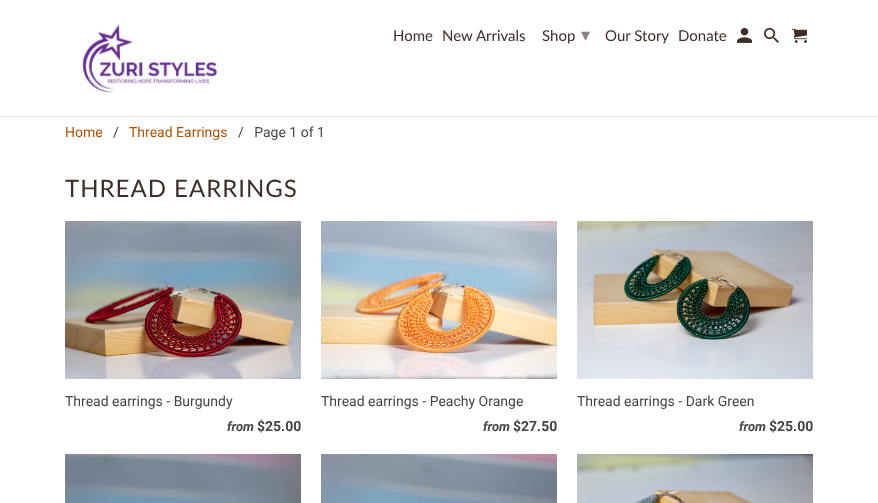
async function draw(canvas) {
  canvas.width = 878
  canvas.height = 503
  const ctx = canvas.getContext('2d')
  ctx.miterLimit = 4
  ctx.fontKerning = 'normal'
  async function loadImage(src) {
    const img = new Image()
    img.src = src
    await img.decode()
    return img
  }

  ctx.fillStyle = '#fff'
  ctx.fillRect(0, 0, 878, 503)
  ctx.fillStyle = '#e5e5e5'
  ctx.fillRect(0, 116, 878, 1)
  ctx.drawImage(await loadImage('image0.png'), 82, 24, 136, 70)
  ctx.font = '15px Lato'
  ctx.fillStyle = '#3e2d29'
  ctx.fillText('Home', 393, 41)
  ctx.fillText('New Arrivals', 442, 41)
  ctx.fillText('Shop', 542, 41)
  ctx.font = '18px DejaVu Sans'
  ctx.fillStyle = '#8b817f'
  ctx.fillText('▾', 581, 41)
  ctx.font = '15px Lato'
  ctx.fillStyle = '#3e2d29'
  ctx.fillText('Our Story', 605, 41)
  ctx.fillText('Donate', 678, 41)
  ctx.drawImage(await loadImage('image1.png'), 737, 27, 15, 16)
  ctx.drawImage(await loadImage('image2.png'), 764, 27, 15, 16)
  ctx.drawImage(await loadImage('image3.png'), 792, 28, 15, 15)
  ctx.font = '14px Roboto'
  ctx.fillStyle = '#b75100'
  ctx.fillText('Home', 65, 137)
  ctx.fillStyle = '#444'
  ctx.fillText('/', 113, 137)
  ctx.fillStyle = '#b75100'
  ctx.fillText('Thread Earrings', 129, 137)
  ctx.fillStyle = '#444'
  ctx.fillText('/   Page 1 of 1', 238, 137)
  ctx.letterSpacing = '1px'
  ctx.font = '24px Lato'
  ctx.fillStyle = '#3e2d29'
  ctx.fillText('THREAD EARRINGS', 65, 197)
  ctx.drawImage(await loadImage('image4.png'), 65, 221, 236, 158)
  ctx.letterSpacing = '0px'
  ctx.font = '14px Roboto'
  ctx.fillStyle = '#444'
  ctx.fillText('Thread earrings - Burgundy', 65, 406)
  ctx.font = 'italic bold 13px Roboto'
  ctx.fillText('from', 227, 431)
  ctx.font = 'bold 14px Roboto'
  ctx.fillText('$25.00', 257, 431)
  ctx.drawImage(await loadImage('image5.png'), 321, 221, 236, 158)
  ctx.font = '14px Roboto'
  ctx.fillText('Thread earrings - Peachy Orange', 321, 406)
  ctx.font = 'italic bold 13px Roboto'
  ctx.fillText('from', 483, 431)
  ctx.font = 'bold 14px Roboto'
  ctx.fillText('$27.50', 513, 431)
  ctx.drawImage(await loadImage('image6.png'), 577, 221, 236, 158)
  ctx.font = '14px Roboto'
  ctx.fillText('Thread earrings - Dark Green', 577, 406)
  ctx.font = 'italic bold 13px Roboto'
  ctx.fillText('from', 739, 431)
  ctx.font = 'bold 14px Roboto'
  ctx.fillText('$25.00', 769, 431)
  ctx.drawImage(await loadImage('image7.png'), 65, 454, 236, 49)
  ctx.drawImage(await loadImage('image8.png'), 321, 454, 236, 49)
  ctx.drawImage(await loadImage('image9.png'), 577, 454, 236, 49)
}

draw(document.querySelector('canvas'))
